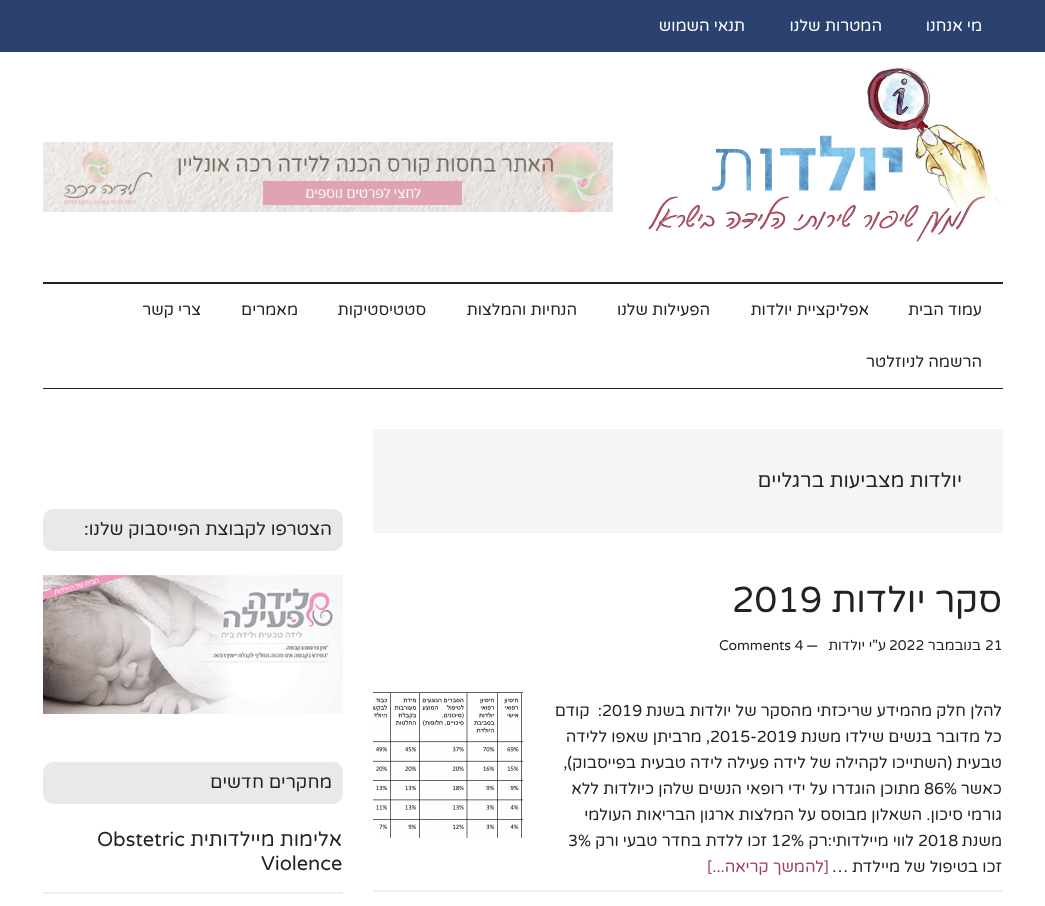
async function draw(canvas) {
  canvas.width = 1045
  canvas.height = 906
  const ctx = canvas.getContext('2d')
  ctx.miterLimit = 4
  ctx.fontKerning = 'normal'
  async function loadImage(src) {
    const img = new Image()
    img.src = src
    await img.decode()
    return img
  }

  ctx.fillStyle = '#fff'
  ctx.fillRect(0, 0, 1045, 906)
  ctx.fillStyle = '#2b426f'
  ctx.fillRect(0, 0, 1045, 52)
  ctx.direction = 'rtl'
  ctx.font = '16px Varela Round'
  ctx.fillStyle = '#fff'
  ctx.fillText('מי אנחנו', 982, 31)
  ctx.fillText('המטרות שלנו', 882, 31)
  ctx.fillText('תנאי השמוש', 745, 31)
  ctx.fillStyle = '#222'
  ctx.fillRect(43, 282, 960, 2)
  ctx.drawImage(await loadImage('image0.png'), 648, 67, 353, 175)
  ctx.drawImage(await loadImage('image1.png'), 43, 142, 570, 70)
  ctx.fillRect(43, 388, 960, 1)
  ctx.fillText('עמוד הבית', 982, 315)
  ctx.fillText('אפליקציית יולדות', 869, 315)
  ctx.fillText('הפעילות שלנו', 710, 315)
  ctx.fillText('הנחיות והמלצות', 577, 315)
  ctx.fillText('סטטיסטיקות', 426, 315)
  ctx.fillText('מאמרים', 298, 315)
  ctx.fillText('צרי קשר', 201, 315)
  ctx.fillText('הרשמה לניוזלטר', 982, 367)
  ctx.fillStyle = '#f5f5f5'
  ctx.fillRect(373, 429, 630, 104)
  ctx.font = '20px Varela Round'
  ctx.fillStyle = '#222'
  ctx.fillText('יולדות מצביעות ברגליים', 962, 487)
  ctx.fillStyle = '#eee'
  ctx.fillRect(373, 890, 630, 2)
  ctx.font = '36px Varela Round'
  ctx.fillStyle = '#222'
  ctx.fillText('סקר יולדות', 1002, 612)
  ctx.direction = 'ltr'
  ctx.fillText('2019', 732, 612)
  ctx.font = '14px Varela Round'
  ctx.fillText('21', 985, 650)
  ctx.direction = 'rtl'
  ctx.fillText('בנובמבר', 981, 650)
  ctx.direction = 'ltr'
  ctx.fillText('2022', 889, 650)
  ctx.direction = 'rtl'
  ctx.fillText('ע"י', 886, 650)
  ctx.fillText('יולדות', 865, 650)
  ctx.direction = 'ltr'
  ctx.fillText('—', 806, 650)
  ctx.fillText('Comments 4', 719, 650)
  ctx.direction = 'rtl'
  ctx.font = '16px Varela Round'
  ctx.fillText('להלן חלק מהמידע שריכזתי מהסקר של יולדות בשנת', 1002, 716)
  ctx.direction = 'ltr'
  ctx.fillText('2019', 602, 716)
  ctx.direction = 'rtl'
  ctx.fillText(':  קודם', 602, 716)
  ctx.fillText('כל מדובר בנשים שילדו משנת', 1002, 742)
  ctx.direction = 'ltr'
  ctx.fillText('2015-2019', 710, 742)
  ctx.direction = 'rtl'
  ctx.fillText(', מרביתן שאפו ללידה', 710, 742)
  ctx.fillText('טבעית (השתייכו לקהילה של לידה פעילה לידה טבעית בפייסבוק),', 1002, 768)
  ctx.fillText('כאשר', 1002, 794)
  ctx.direction = 'ltr'
  ctx.fillText('86%', 924, 794)
  ctx.direction = 'rtl'
  ctx.fillText('מתוכן הוגדרו על ידי רופאי הנשים שלהן כיולדות ללא', 920, 794)
  ctx.fillText('גורמי סיכון. השאלון מבוסס על המלצות ארגון הבריאות העולמי', 1002, 820)
  ctx.fillText('משנת', 1002, 846)
  ctx.direction = 'ltr'
  ctx.fillText('2018', 918, 846)
  ctx.direction = 'rtl'
  ctx.fillText('לווי מיילדותי:רק', 914, 846)
  ctx.direction = 'ltr'
  ctx.fillText('12%', 771, 846)
  ctx.direction = 'rtl'
  ctx.fillText('זכו ללדת בחדר טבעי ורק', 767, 846)
  ctx.direction = 'ltr'
  ctx.fillText('3%', 568, 846)
  ctx.direction = 'rtl'
  ctx.fillText('זכו בטיפול של מיילדת …', 1002, 872)
  ctx.fillStyle = '#a04154'
  ctx.fillText('[להמשך קריאה...]', 829, 872)
  ctx.drawImage(await loadImage('image2.png'), 373, 692, 150, 146)
  ctx.fillStyle = '#e9e9e9'
  ctx.beginPath()
  ctx.roundRect(43, 509, 300, 42, 10)
  ctx.fill()
  ctx.font = '18px Varela Round'
  ctx.fillStyle = '#222'
  ctx.fillText('הצטרפו לקבוצת הפייסבוק שלנו:', 332, 535)
  ctx.drawImage(await loadImage('image3.png'), 43, 575, 300, 139)
  ctx.fillStyle = '#e9e9e9'
  ctx.beginPath()
  ctx.roundRect(43, 762, 300, 42, 10)
  ctx.fill()
  ctx.fillStyle = '#222'
  ctx.fillText('מחקרים חדשים', 332, 788)
  ctx.fillStyle = '#eee'
  ctx.fillRect(43, 892, 300, 2)
  ctx.font = '20px Varela Round'
  ctx.fillStyle = '#222'
  ctx.fillText('אלימות מיילדותית', 342, 846)
  ctx.direction = 'ltr'
  ctx.fillText('Obstetric', 97, 846)
  ctx.fillText('Violence', 261, 870)
}

draw(document.querySelector('canvas'))
